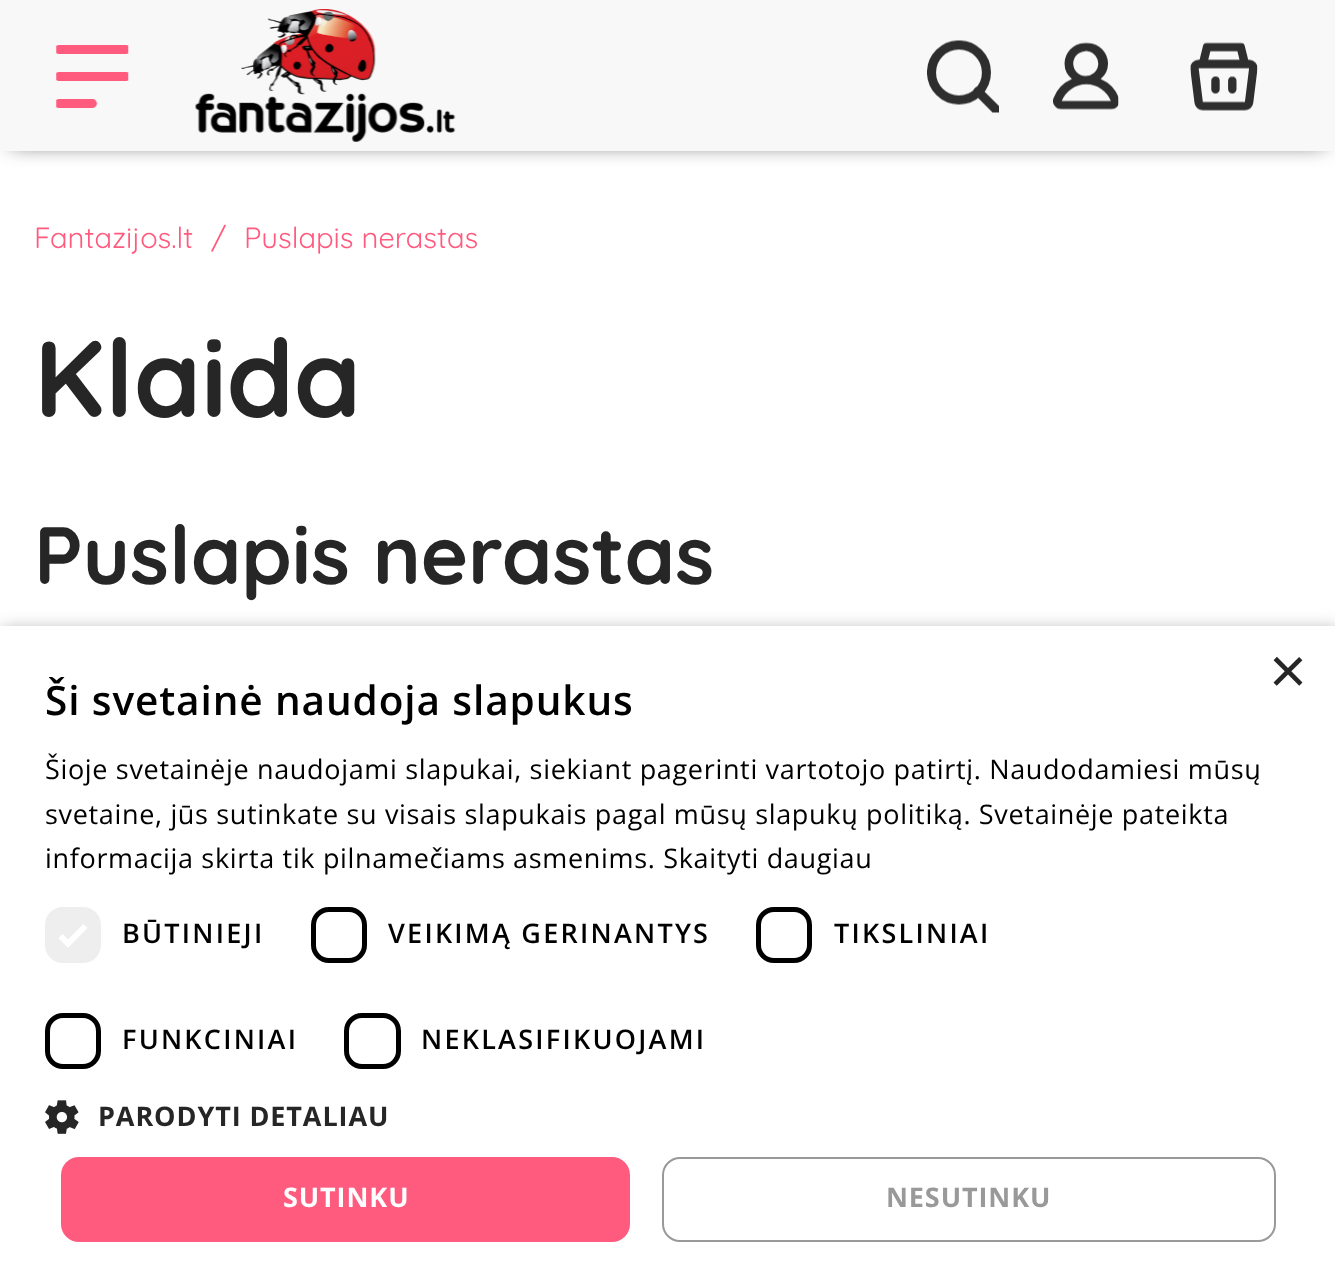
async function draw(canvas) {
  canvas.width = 1335
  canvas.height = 1285
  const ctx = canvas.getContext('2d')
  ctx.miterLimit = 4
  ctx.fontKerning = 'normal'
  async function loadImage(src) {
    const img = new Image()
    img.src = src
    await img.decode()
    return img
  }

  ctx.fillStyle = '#fff'
  ctx.fillRect(0, 0, 1335, 1285)
  ctx.fillStyle = '#262626'
  ctx.filter = 'blur(11px)'
  ctx.beginPath()
  ctx.rect(11, 14, 1314, 128)
  ctx.fill()
  ctx.filter = 'none'
  ctx.fillStyle = '#f8f8f8'
  ctx.fillRect(0, 0, 1335, 151)
  ctx.drawImage(await loadImage('image0.png'), 56, 45, 73, 63)
  ctx.drawImage(await loadImage('image1.png'), 195, 9, 261, 133)
  ctx.drawImage(await loadImage('image2.png'), 927, 40, 72, 73)
  ctx.drawImage(await loadImage('image3.png'), 1053, 42, 66, 68)
  ctx.drawImage(await loadImage('image4.png'), 1190, 42, 68, 69)
  ctx.font = '29.25px Quicksand'
  ctx.fillStyle = '#ff5b7f'
  ctx.fillText('Fantazijos.lt', 34, 248)
  ctx.fillText('/', 211, 248)
  ctx.fillText('Puslapis nerastas', 244, 248)
  ctx.font = 'bold 108px Quicksand'
  ctx.fillStyle = '#262626'
  ctx.fillText('Klaida', 34, 417)
  ctx.font = 'bold 81px Quicksand'
  ctx.fillText('Puslapis nerastas', 34, 584)
  ctx.fillStyle = '#00000059'
  ctx.filter = 'blur(9px)'
  ctx.beginPath()
  ctx.rect(2, 630, 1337, 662)
  ctx.fill()
  ctx.filter = 'none'
  ctx.fillStyle = '#fff'
  ctx.fillRect(0, 626, 1335, 659)
  ctx.font = '65px Liberation Sans'
  ctx.fillStyle = '#262626'
  ctx.fillText('×', 1269, 693)
  ctx.letterSpacing = '0.9px'
  ctx.font = '600 40.5px Open Sans'
  ctx.fillStyle = '#000'
  ctx.fillText('Ši svetainė naudoja slapukus', 45, 715)
  ctx.letterSpacing = '0.67px'
  ctx.font = '27px Open Sans'
  ctx.fillText('Šioje svetainėje naudojami slapukai, siekiant pagerinti vartotojo patirtį. Naudodamiesi mūsų', 45, 779)
  ctx.fillText('svetaine, jūs sutinkate su visais slapukais pagal mūsų slapukų politiką. Svetainėje pateikta', 45, 824)
  ctx.fillText('informacija skirta tik pilnamečiams asmenims. Skaityti daugiau', 45, 868)
  ctx.fillStyle = '#eee'
  ctx.beginPath()
  ctx.roundRect(45, 907, 56, 56, 18)
  ctx.fill()
  ctx.beginPath()
  ctx.moveTo(60.5, 936)
  ctx.lineTo(68, 943.5)
  ctx.lineTo(85.5, 926)
  ctx.strokeStyle = '#fff'
  ctx.lineWidth = 5.9
  ctx.stroke()
  ctx.letterSpacing = '2.25px'
  ctx.font = '600 27px Open Sans'
  ctx.fillStyle = '#000'
  ctx.fillText('BŪTINIEJI', 122, 943)
  ctx.beginPath()
  ctx.roundRect(313.5, 909.5, 51, 51, 15.5)
  ctx.strokeStyle = '#000'
  ctx.lineWidth = 5
  ctx.stroke()
  ctx.fillText('VEIKIMĄ GERINANTYS', 388, 943)
  ctx.beginPath()
  ctx.roundRect(758.5, 909.5, 51, 51, 15.5)
  ctx.stroke()
  ctx.fillText('TIKSLINIAI', 834, 943)
  ctx.beginPath()
  ctx.roundRect(47.5, 1015.5, 51, 51, 15.5)
  ctx.stroke()
  ctx.fillText('FUNKCINIAI', 122, 1049)
  ctx.beginPath()
  ctx.roundRect(346.5, 1015.5, 52, 51, 15.5)
  ctx.stroke()
  ctx.fillText('NEKLASIFIKUOJAMI', 421, 1049)
  ctx.drawImage(await loadImage('image5.png'), 45, 1100, 34, 34)
  ctx.letterSpacing = '0.9px'
  ctx.font = 'bold 27px Open Sans'
  ctx.fillStyle = '#262626'
  ctx.fillText('PARODYTI DETALIAU', 98, 1126)
  ctx.fillStyle = '#ff5b7f'
  ctx.beginPath()
  ctx.roundRect(61, 1157, 569, 85, 18)
  ctx.fill()
  ctx.fillStyle = '#fff'
  ctx.fillText('SUTINKU', 283, 1207)
  ctx.beginPath()
  ctx.roundRect(663, 1158, 612, 83, 17)
  ctx.strokeStyle = '#999'
  ctx.lineWidth = 2
  ctx.stroke()
  ctx.fillStyle = '#999'
  ctx.fillText('NESUTINKU', 886, 1207)
}

draw(document.querySelector('canvas'))
